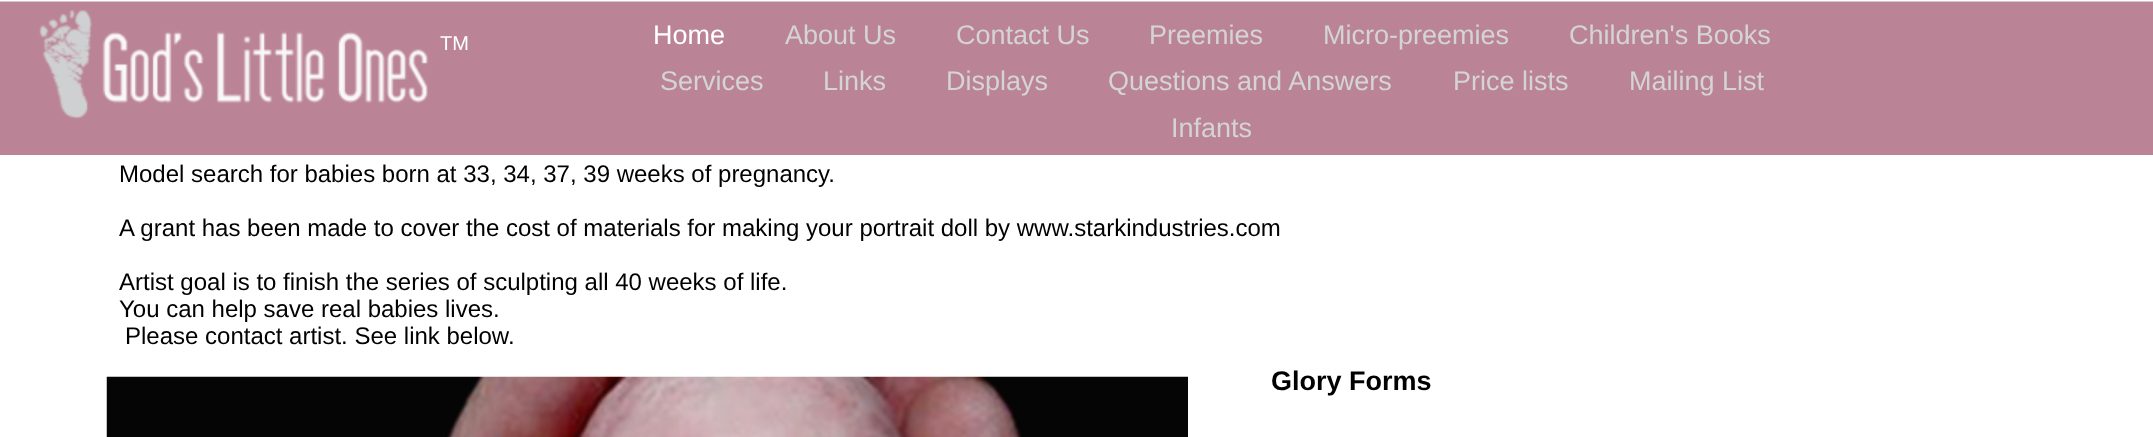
async function draw(canvas) {
  canvas.width = 2153
  canvas.height = 437
  const ctx = canvas.getContext('2d')
  ctx.miterLimit = 4
  ctx.fontKerning = 'normal'
  async function loadImage(src) {
    const img = new Image()
    img.src = src
    await img.decode()
    return img
  }

  ctx.fillStyle = '#fff'
  ctx.fillRect(0, 0, 2153, 437)
  ctx.fillStyle = '#bb8496'
  ctx.fillRect(0, 2, 2153, 153)
  ctx.fillStyle = '#ddc1ca'
  ctx.fillRect(0, 1, 2153, 1)
  ctx.drawImage(await loadImage('image0.png'), 39, 10, 389, 109)
  ctx.font = '20px Liberation Sans'
  ctx.fillStyle = '#fff'
  ctx.fillText('TM', 440, 50)
  ctx.font = '27px Liberation Sans'
  ctx.fillText('Home', 653, 44)
  ctx.fillStyle = '#d4d4d4'
  ctx.fillText('About Us', 785, 44)
  ctx.fillText('Contact Us', 956, 44)
  ctx.fillText('Preemies', 1149, 44)
  ctx.fillText('Micro-preemies', 1323, 44)
  ctx.fillText('Children\'s Books', 1569, 44)
  ctx.fillText('Services', 660, 90)
  ctx.fillText('Links', 823, 90)
  ctx.fillText('Displays', 946, 90)
  ctx.fillText('Questions and Answers', 1108, 90)
  ctx.fillText('Price lists', 1453, 90)
  ctx.fillText('Mailing List', 1629, 90)
  ctx.fillText('Infants', 1171, 137)
  ctx.font = '24px Liberation Sans'
  ctx.fillStyle = '#000'
  ctx.fillText('Model search for babies born at 33, 34, 37, 39 weeks of pregnancy.', 119, 182)
  ctx.fillText('A grant has been made to cover the cost of materials for making your portrait doll by www.starkindustries.com', 119, 236)
  ctx.fillText('Artist goal is to finish the series of sculpting all 40 weeks of life.', 119, 290)
  ctx.fillText('You can help save real babies lives.', 119, 317)
  ctx.fillText('Please contact artist. See link below.', 125, 344)
  ctx.drawImage(await loadImage('image1.png'), 106, 376, 1082, 61)
  ctx.font = 'bold 27px Liberation Sans'
  ctx.fillText('Glory Forms', 1271, 390)
}

draw(document.querySelector('canvas'))
